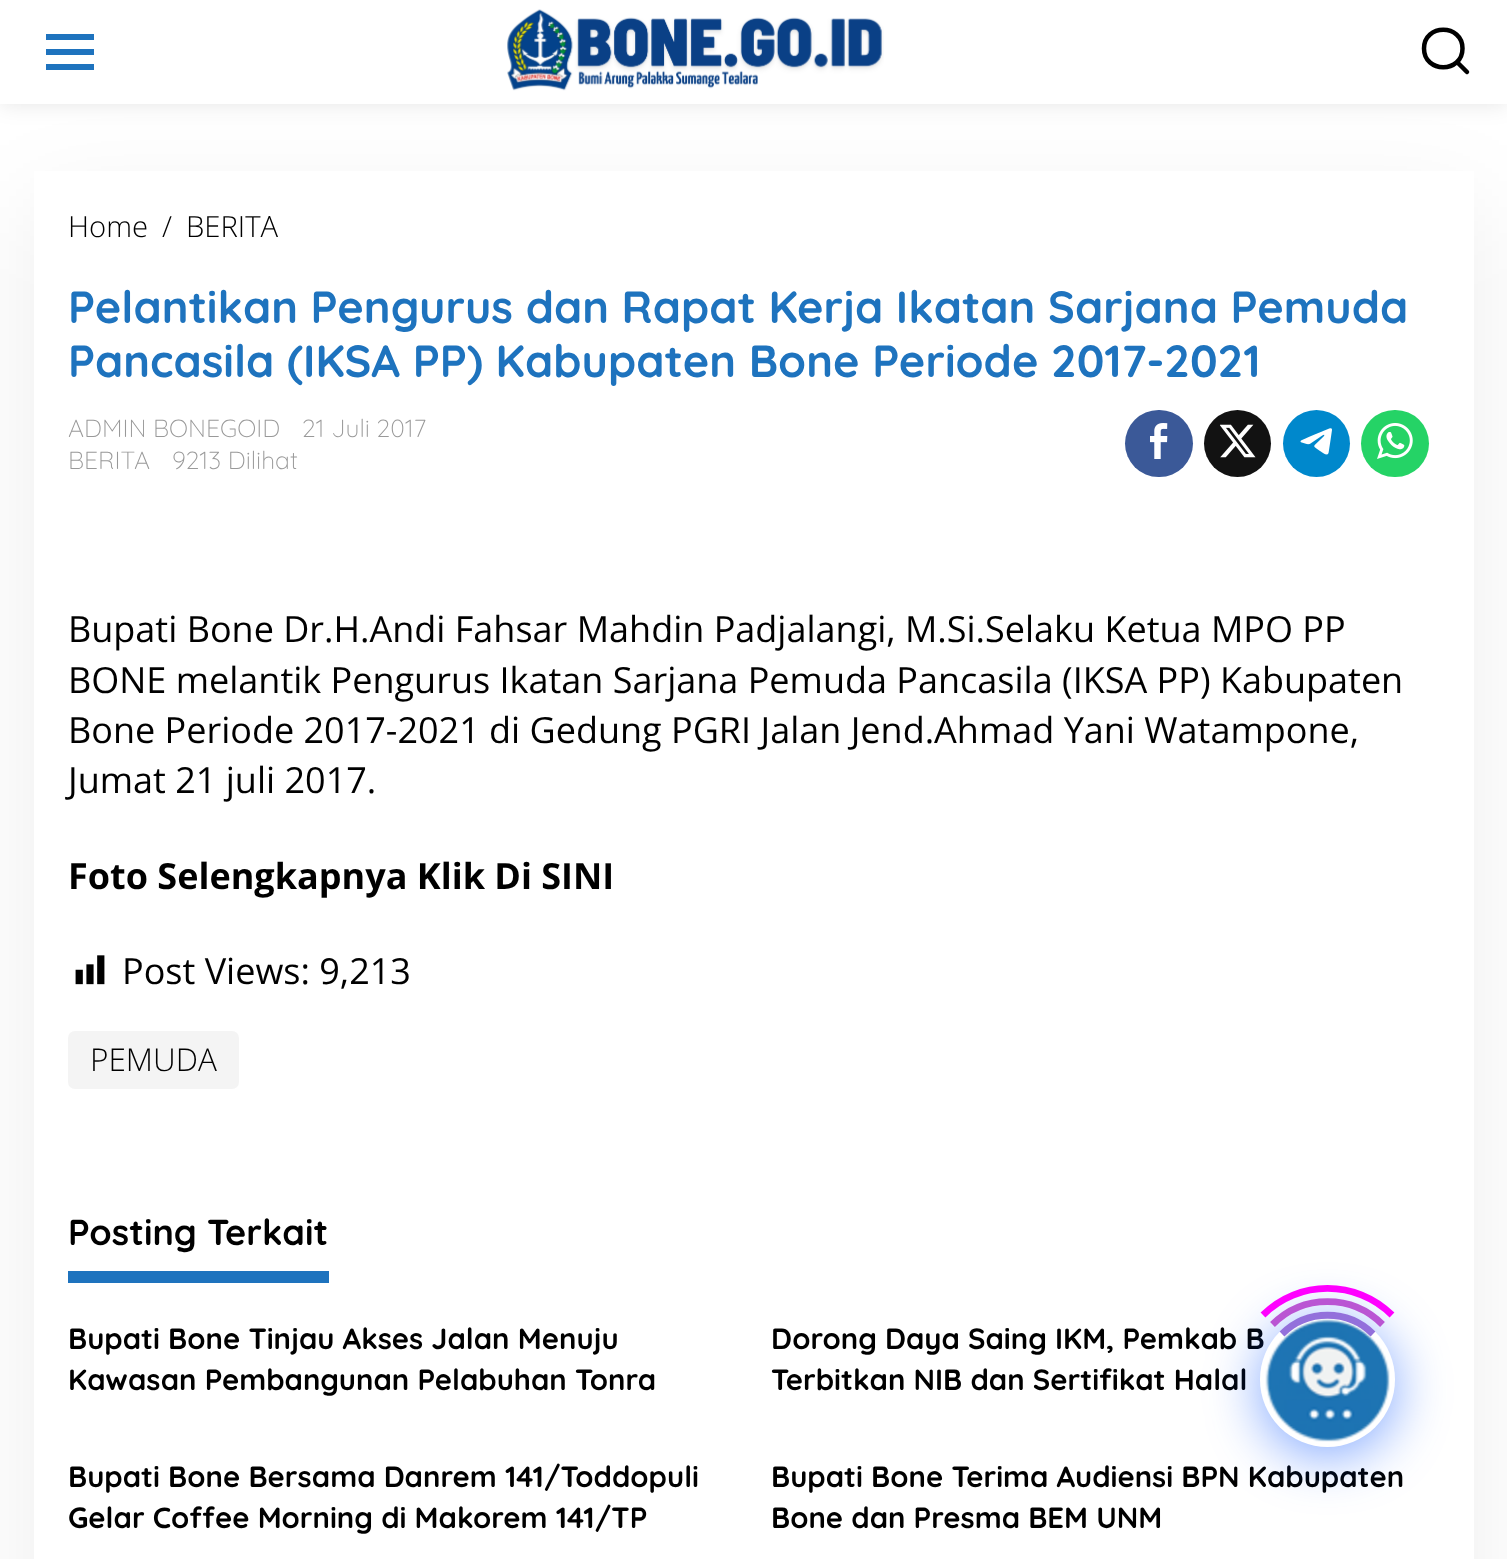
async function draw(canvas) {
  canvas.width = 1507
  canvas.height = 1559
  const ctx = canvas.getContext('2d')
  ctx.miterLimit = 4
  ctx.fontKerning = 'normal'
  async function loadImage(src) {
    const img = new Image()
    img.src = src
    await img.decode()
    return img
  }

  ctx.fillStyle = '#fff'
  ctx.fillRect(0, 0, 1507, 1559)
  ctx.fillStyle = '#0000001a'
  ctx.filter = 'blur(11px)'
  ctx.beginPath()
  ctx.rect(0, 0, 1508, 104)
  ctx.fill()
  ctx.filter = 'none'
  ctx.fillStyle = '#00000012'
  ctx.filter = 'blur(50.5px)'
  ctx.beginPath()
  ctx.rect(34, 207, 1440, 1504)
  ctx.fill()
  ctx.filter = 'none'
  ctx.fillStyle = '#fff'
  ctx.fillRect(0, 0, 1507, 104)
  ctx.fillStyle = '#1e73be'
  ctx.beginPath()
  ctx.moveTo(46, 34)
  ctx.lineTo(94, 34)
  ctx.lineTo(94, 40)
  ctx.lineTo(46, 40)
  ctx.closePath()
  ctx.moveTo(46, 49)
  ctx.lineTo(94, 49)
  ctx.lineTo(94, 55)
  ctx.lineTo(46, 55)
  ctx.closePath()
  ctx.moveTo(46, 64)
  ctx.lineTo(94, 64)
  ctx.lineTo(94, 70)
  ctx.lineTo(46, 70)
  ctx.closePath()
  ctx.fill()
  ctx.drawImage(await loadImage('image0.png'), 507, 9, 377, 82)
  ctx.beginPath()
  ctx.moveTo(1467, 72)
  ctx.lineTo(1457, 62)
  ctx.moveTo(1462.5, 48.5)
  ctx.bezierCurveTo(1462.5, 73.5, 1424, 73.5, 1424, 48.5)
  ctx.bezierCurveTo(1424, 23.5, 1462.5, 23.5, 1462.5, 48.5)
  ctx.closePath()
  ctx.strokeStyle = '#000'
  ctx.lineWidth = 4.5
  ctx.lineCap = 'round'
  ctx.stroke()
  ctx.fillStyle = '#fff'
  ctx.fillRect(34, 171, 1440, 1388)
  ctx.font = '300 29.25px Open Sans'
  ctx.fillStyle = '#000'
  ctx.fillText('Home', 68, 237)
  ctx.fillText('/', 162, 237)
  ctx.fillText('BERITA', 186, 237)
  ctx.font = 'bold 45px Quicksand'
  ctx.fillStyle = '#1e73be'
  ctx.fillText('Pelantikan Pengurus dan Rapat Kerja Ikatan Sarjana Pemuda', 68, 323)
  ctx.fillText('Pancasila (IKSA PP) Kabupaten Bone Periode 2017-2021', 68, 377)
  ctx.font = '300 24.75px Quicksand'
  ctx.fillStyle = '#999'
  ctx.fillText('ADMIN BONEGOID', 68, 437)
  ctx.fillText('21 Juli 2017', 302, 437)
  ctx.fillText('BERITA', 68, 469)
  ctx.fillText('9213 Dilihat', 172, 469)
  ctx.fillStyle = '#3b5998'
  ctx.beginPath()
  ctx.roundRect(1125, 410, 68, 67, 33.5)
  ctx.fill()
  ctx.drawImage(await loadImage('image1.png'), 1150, 423, 18, 36)
  ctx.fillStyle = '#121212'
  ctx.beginPath()
  ctx.arc(1237.5, 443.5, 33.5, 0, 2 * Math.PI)
  ctx.fill()
  ctx.drawImage(await loadImage('image2.png'), 1220, 424, 36, 34)
  ctx.fillStyle = '#08c'
  ctx.beginPath()
  ctx.arc(1316.5, 443.5, 33.5, 0, 2 * Math.PI)
  ctx.fill()
  ctx.drawImage(await loadImage('image3.png'), 1300, 428, 32, 27)
  ctx.fillStyle = '#25d366'
  ctx.beginPath()
  ctx.roundRect(1361, 410, 68, 67, 33.5)
  ctx.fill()
  ctx.drawImage(await loadImage('image4.png'), 1377, 423, 36, 36)
  ctx.font = '36px Open Sans'
  ctx.fillStyle = '#000'
  ctx.fillText('Bupati Bone Dr.H.Andi Fahsar Mahdin Padjalangi, M.Si.Selaku Ketua MPO PP', 68, 642)
  ctx.fillText('BONE melantik Pengurus Ikatan Sarjana Pemuda Pancasila (IKSA PP) Kabupaten', 68, 693)
  ctx.fillText('Bone Periode 2017-2021 di Gedung PGRI Jalan Jend.Ahmad Yani Watampone,', 68, 743)
  ctx.fillText('Jumat 21 juli 2017.', 68, 793)
  ctx.font = 'bold 36px Open Sans'
  ctx.fillText('Foto Selengkapnya Klik Di SINI', 68, 889)
  ctx.drawImage(await loadImage('image5.png'), 75, 955, 30, 30)
  ctx.font = '36px Open Sans'
  ctx.fillText('Post Views: 9,213', 122, 984)
  ctx.fillStyle = '#f4f4f4'
  ctx.beginPath()
  ctx.roundRect(68, 1031, 171, 58, 7)
  ctx.fill()
  ctx.font = '300 31.5px Open Sans'
  ctx.fillStyle = '#000'
  ctx.fillText('PEMUDA', 90, 1071)
  ctx.fillStyle = '#1e73be'
  ctx.fillRect(68, 1271, 261, 12)
  ctx.font = 'bold 36px Quicksand'
  ctx.fillStyle = '#000'
  ctx.fillText('Posting Terkait', 68, 1245)
  ctx.font = 'bold 29.25px Quicksand'
  ctx.fillText('Bupati Bone Tinjau Akses Jalan Menuju', 68, 1349)
  ctx.fillText('Kawasan Pembangunan Pelabuhan Tonra', 68, 1390)
  ctx.fillText('Dorong Daya Saing IKM, Pemkab B', 771, 1349)
  ctx.fillText('Terbitkan NIB dan Sertifikat Halal', 771, 1390)
  ctx.fillText('Bupati Bone Bersama Danrem 141/Toddopuli', 68, 1487)
  ctx.fillText('Gelar Coffee Morning di Makorem 141/TP', 68, 1528)
  ctx.fillText('Bupati Bone Terima Audiensi BPN Kabupaten', 771, 1487)
  ctx.fillText('Bone dan Presma BEM UNM', 771, 1528)
  ctx.fillStyle = '#004dff80'
  ctx.filter = 'blur(27px)'
  ctx.beginPath()
  ctx.roundRect(1260, 1321, 135, 135, 67.5)
  ctx.fill()
  ctx.filter = 'none'
  ctx.fillStyle = '#fff'
  ctx.beginPath()
  ctx.arc(1327.5, 1379.5, 67.5, 0, 2 * Math.PI)
  ctx.fill()
  ctx.drawImage(await loadImage('image6.png'), 1265, 1319, 125, 123)
  ctx.beginPath()
  ctx.moveTo(1282, 1334)
  ctx.bezierCurveTo(1307, 1309, 1348, 1309, 1373, 1334)
  ctx.strokeStyle = '#9370db'
  ctx.lineWidth = 6.8
  ctx.lineCap = 'butt'
  ctx.stroke()
  ctx.beginPath()
  ctx.moveTo(1272.5, 1324.5)
  ctx.bezierCurveTo(1303, 1294, 1352, 1294, 1382.5, 1324.5)
  ctx.strokeStyle = '#ba55d3'
  ctx.stroke()
  ctx.beginPath()
  ctx.moveTo(1263, 1315)
  ctx.bezierCurveTo(1298.5, 1279.5, 1356.5, 1279.5, 1392, 1315)
  ctx.strokeStyle = '#f0f'
  ctx.stroke()
}

draw(document.querySelector('canvas'))
